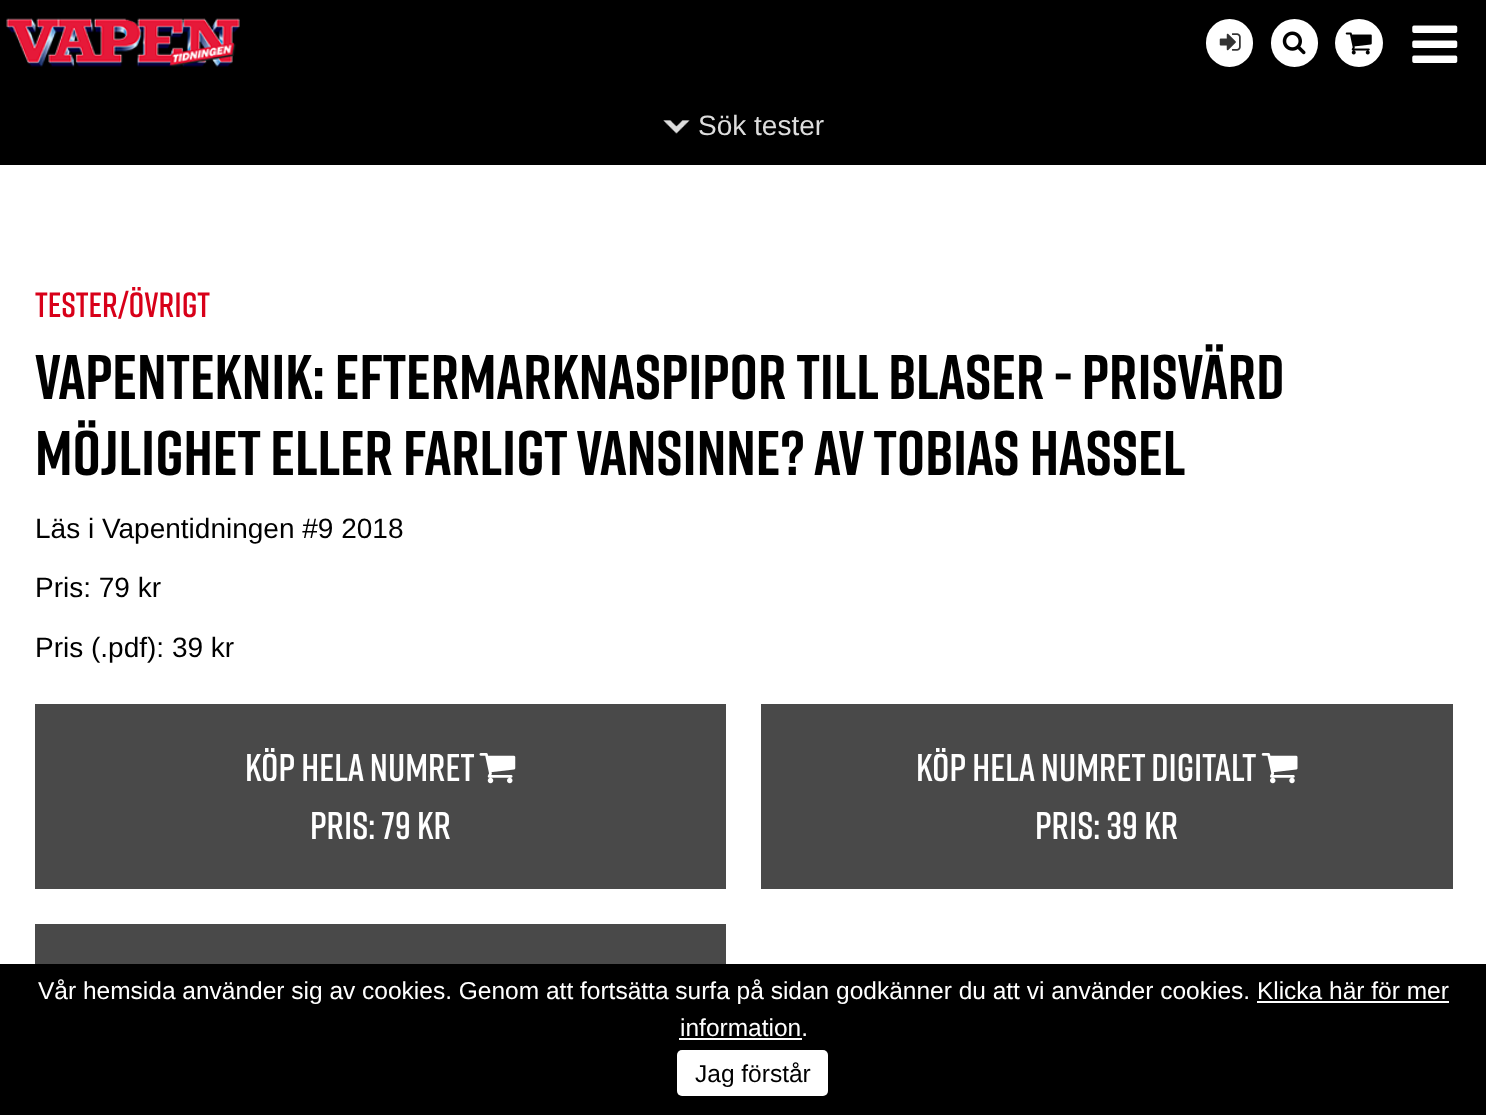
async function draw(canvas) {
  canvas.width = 1486
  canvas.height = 1115
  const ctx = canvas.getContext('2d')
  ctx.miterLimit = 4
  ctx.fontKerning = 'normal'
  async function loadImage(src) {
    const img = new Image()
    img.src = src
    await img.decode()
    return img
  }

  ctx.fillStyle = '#fff'
  ctx.fillRect(0, 0, 1486, 1115)
  ctx.fillStyle = '#000'
  ctx.fillRect(0, 0, 1486, 165)
  ctx.drawImage(await loadImage('image0.png'), 6, 18, 234, 49)
  ctx.fillStyle = '#fff'
  ctx.beginPath()
  ctx.roundRect(1206, 19, 47, 48, 23.5)
  ctx.fill()
  ctx.drawImage(await loadImage('image1.png'), 1219, 33, 22, 18)
  ctx.beginPath()
  ctx.roundRect(1271, 19, 47, 48, 23.5)
  ctx.fill()
  ctx.drawImage(await loadImage('image2.png'), 1282, 31, 24, 24)
  ctx.beginPath()
  ctx.arc(1359, 43, 24, 0, 2 * Math.PI)
  ctx.fill()
  ctx.drawImage(await loadImage('image3.png'), 1345, 32, 27, 23)
  ctx.drawImage(await loadImage('image4.png'), 1412, 25, 46, 38)
  ctx.drawImage(await loadImage('image5.png'), 663, 120, 27, 14)
  ctx.font = '28px Liberation Sans'
  ctx.fillStyle = '#ddd'
  ctx.fillText('Sök tester', 698, 135)
  ctx.font = '600 35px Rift'
  ctx.fillStyle = '#d80019'
  ctx.fillText('Tester/Övrigt', 35, 317)
  ctx.font = 'bold 63px Rift'
  ctx.fillStyle = '#000'
  ctx.fillText('Vapenteknik: Eftermarknaspipor till Blaser - Prisvärd', 35, 399)
  ctx.fillText('möjlighet eller farligt vansinne? av Tobias Hassel', 35, 475)
  ctx.font = '28px Liberation Sans'
  ctx.fillText('Läs i Vapentidningen #9 2018', 35, 538)
  ctx.fillText('Pris: 79 kr', 35, 597)
  ctx.fillText('Pris (.pdf): 39 kr', 35, 657)
  ctx.fillStyle = '#494949'
  ctx.fillRect(35, 704, 691, 185)
  ctx.font = '600 38.5px Rift'
  ctx.fillStyle = '#fff'
  ctx.fillText('Köp hela numret', 245, 781)
  ctx.drawImage(await loadImage('image6.png'), 479, 753, 37, 31)
  ctx.fillText('Pris: 79 kr', 310, 839)
  ctx.fillStyle = '#494949'
  ctx.fillRect(761, 704, 692, 185)
  ctx.fillStyle = '#fff'
  ctx.fillText('Köp hela numret digitalt', 916, 781)
  ctx.drawImage(await loadImage('image7.png'), 1261, 753, 37, 31)
  ctx.fillText('Pris: 39 kr', 1035, 839)
  ctx.fillStyle = '#494949'
  ctx.fillRect(35, 924, 691, 40)
  ctx.fillStyle = '#000'
  ctx.fillRect(0, 964, 1486, 151)
  ctx.font = '24.5px Liberation Sans'
  ctx.fillStyle = '#fff'
  ctx.fillText('Vår hemsida använder sig av cookies. Genom att fortsätta surfa på sidan godkänner du att vi använder cookies. Klicka här för mer', 38, 999)
  ctx.fillText('information.', 680, 1036)
  ctx.fillRect(1257, 1001, 192, 2)
  ctx.fillRect(679, 1038, 123, 2)
  ctx.beginPath()
  ctx.roundRect(677, 1050, 151, 46, 5)
  ctx.fill()
  ctx.fillStyle = '#000'
  ctx.fillText('Jag förstår', 695, 1082)
}

draw(document.querySelector('canvas'))
